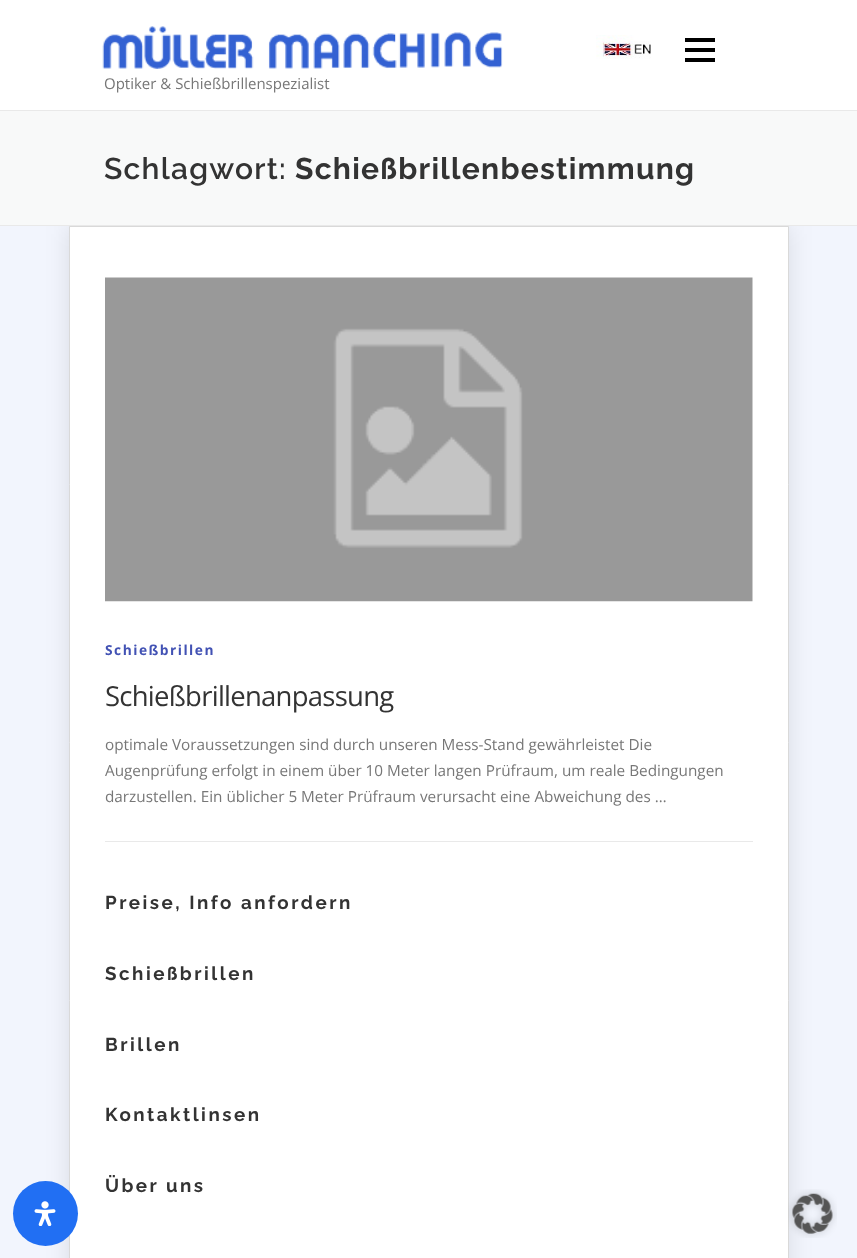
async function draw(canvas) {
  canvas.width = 857
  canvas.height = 1258
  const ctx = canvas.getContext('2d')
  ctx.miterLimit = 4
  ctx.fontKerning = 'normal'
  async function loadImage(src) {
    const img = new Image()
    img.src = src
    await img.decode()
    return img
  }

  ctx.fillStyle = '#fff'
  ctx.fillRect(0, 0, 857, 1258)
  ctx.drawImage(await loadImage('image0.png'), 596, 35, 55, 24)
  ctx.fillStyle = '#000'
  ctx.fillRect(685, 48, 30, 4)
  ctx.fillRect(685, 38, 30, 4)
  ctx.fillRect(685, 58, 30, 4)
  ctx.drawImage(await loadImage('image1.png'), 102, 26, 401, 43)
  ctx.font = '15px Open Sans'
  ctx.fillStyle = '#777'
  ctx.fillText('Optiker & Schießbrillenspezialist', 104, 89)
  ctx.fillStyle = '#f2f5fd'
  ctx.fillRect(0, 226, 857, 1032)
  ctx.fillStyle = '#0000001a'
  ctx.filter = 'blur(12.5px)'
  ctx.beginPath()
  ctx.rect(69, 226, 720, 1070)
  ctx.fill()
  ctx.filter = 'none'
  ctx.fillStyle = '#f8f9f9'
  ctx.fillRect(0, 111, 857, 114)
  ctx.fillStyle = '#e9e9e9'
  ctx.fillRect(0, 110, 857, 1)
  ctx.fillRect(0, 225, 857, 1)
  ctx.letterSpacing = '1.25px'
  ctx.font = '600 30px Raleway'
  ctx.fillStyle = '#333'
  ctx.fillText('Schlagwort:', 104, 179)
  ctx.font = 'bold 30px Raleway'
  ctx.fillText('Schießbrillenbestimmung', 295, 179)
  ctx.fillStyle = '#fff'
  ctx.beginPath()
  ctx.rect(69.5, 226.5, 719, 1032)
  ctx.fill()
  ctx.strokeStyle = '#d9d9d9'
  ctx.stroke()
  ctx.fillStyle = '#e9e9e9'
  ctx.fillRect(105, 841, 648, 1)
  ctx.drawImage(await loadImage('image2.png'), 105, 277, 648, 325)
  ctx.letterSpacing = '1.5px'
  ctx.font = 'bold 13.75px Open Sans'
  ctx.fillStyle = '#4252b4'
  ctx.fillText('Schießbrillen', 105, 655)
  ctx.letterSpacing = '-0.75px'
  ctx.font = '27.5px Open Sans'
  ctx.fillStyle = '#333'
  ctx.fillText('Schießbrillenanpassung', 105, 706)
  ctx.letterSpacing = '0px'
  ctx.font = '15.3px Open Sans'
  ctx.fillStyle = '#777'
  ctx.fillText('optimale Voraussetzungen sind durch unseren Mess-Stand gewährleistet Die', 105, 750)
  ctx.fillText('Augenprüfung erfolgt in einem über 10 Meter langen Prüfraum, um reale Bedingungen', 105, 776)
  ctx.fillText('darzustellen. Ein üblicher 5 Meter Prüfraum verursacht eine Abweichung des …', 105, 802)
  ctx.letterSpacing = '2.5px'
  ctx.font = 'bold 18.75px Raleway'
  ctx.fillStyle = '#333'
  ctx.fillText('Preise, Info anfordern', 105, 909)
  ctx.fillText('Schießbrillen', 105, 980)
  ctx.fillText('Brillen', 105, 1051)
  ctx.fillText('Kontaktlinsen', 105, 1121)
  ctx.fillText('Über uns', 105, 1192)
  ctx.fillStyle = '#216ff3'
  ctx.beginPath()
  ctx.arc(45.5, 1213.5, 32.5, 0, 2 * Math.PI)
  ctx.fill()
  ctx.drawImage(await loadImage('image3.png'), 34, 1201, 22, 25)
  ctx.drawImage(await loadImage('image4.png'), 788, 1189, 49, 49)
}

draw(document.querySelector('canvas'))
